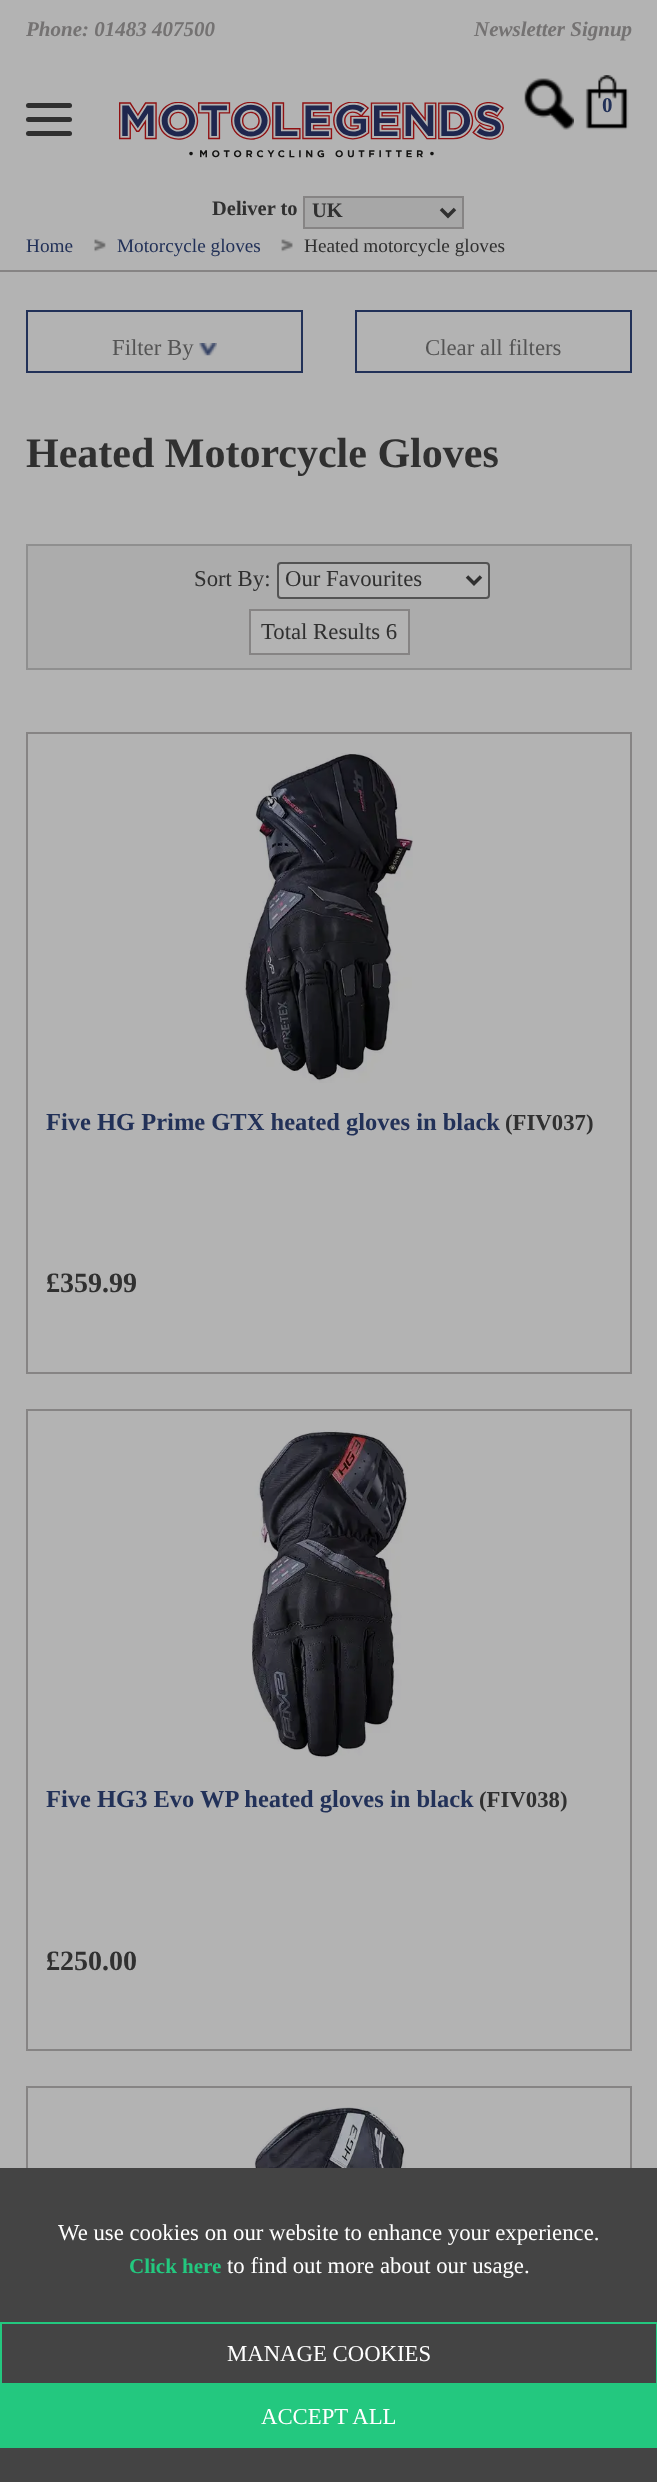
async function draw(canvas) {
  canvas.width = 657
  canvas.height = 2482
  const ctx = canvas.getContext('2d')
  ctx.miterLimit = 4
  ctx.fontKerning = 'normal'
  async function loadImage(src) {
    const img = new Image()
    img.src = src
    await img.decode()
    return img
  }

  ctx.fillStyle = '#b3b3b3'
  ctx.fillRect(0, 0, 657, 2482)
  ctx.font = 'italic bold 21px Liberation Serif'
  ctx.fillStyle = '#747272'
  ctx.fillText('Phone: 01483 407500', 26, 36)
  ctx.fillText('Newsletter Signup', 474, 36)
  ctx.fillStyle = '#303030'
  ctx.beginPath()
  ctx.roundRect(26, 103, 46, 5, 2.5)
  ctx.fill()
  ctx.beginPath()
  ctx.roundRect(26, 117, 46, 5, 2.5)
  ctx.fill()
  ctx.beginPath()
  ctx.roundRect(26, 131, 46, 5, 2.5)
  ctx.fill()
  ctx.drawImage(await loadImage('image0.png'), 119, 102, 385, 56)
  ctx.drawImage(await loadImage('image1.png'), 524, 78, 50, 52)
  ctx.drawImage(await loadImage('image2.png'), 585, 75, 44, 55)
  ctx.font = 'bold 21px Liberation Serif'
  ctx.fillStyle = '#223158'
  ctx.fillText('0', 602, 112)
  ctx.font = 'bold 20.5px Liberation Serif'
  ctx.fillStyle = '#303030'
  ctx.fillText('Deliver to', 212, 215)
  ctx.fillStyle = '#a7a7a7'
  ctx.beginPath()
  ctx.rect(304, 197, 159, 31)
  ctx.fill()
  ctx.strokeStyle = '#868484'
  ctx.lineWidth = 2
  ctx.stroke()
  ctx.beginPath()
  ctx.moveTo(441, 209)
  ctx.lineTo(448, 216)
  ctx.lineTo(455, 209)
  ctx.strokeStyle = '#303030'
  ctx.lineWidth = 3.5
  ctx.stroke()
  ctx.fillStyle = '#303030'
  ctx.fillText('UK', 312, 217)
  ctx.fillStyle = '#868484'
  ctx.fillRect(0, 270, 657, 2)
  ctx.font = '19.25px Liberation Serif'
  ctx.fillStyle = '#223158'
  ctx.fillText('Home', 26, 252)
  ctx.drawImage(await loadImage('image3.png'), 94, 239, 12, 13)
  ctx.fillText('Motorcycle gloves', 117, 252)
  ctx.drawImage(await loadImage('image4.png'), 281, 239, 12, 13)
  ctx.fillStyle = '#303030'
  ctx.fillText('Heated motorcycle gloves', 304, 252)
  ctx.strokeStyle = '#223158'
  ctx.lineWidth = 2
  ctx.strokeRect(27, 311, 275, 61)
  ctx.font = '22.75px Liberation Serif'
  ctx.fillStyle = '#545454'
  ctx.fillText('Filter By', 112, 355)
  ctx.drawImage(await loadImage('image5.png'), 199, 343, 18, 13)
  ctx.strokeRect(356, 311, 275, 61)
  ctx.fillText('Clear all filters', 425, 355)
  ctx.font = 'bold 42px Liberation Serif'
  ctx.fillStyle = '#303030'
  ctx.fillText('Heated Motorcycle Gloves', 26, 467)
  ctx.fillStyle = '#acacac'
  ctx.beginPath()
  ctx.rect(27, 545, 604, 124)
  ctx.fill()
  ctx.strokeStyle = '#8f8f8f'
  ctx.stroke()
  ctx.font = '22.75px Liberation Serif'
  ctx.fillStyle = '#303030'
  ctx.fillText('Sort By:', 194, 586)
  ctx.fillStyle = '#b3b3b3'
  ctx.beginPath()
  ctx.roundRect(278, 563, 211, 35, 3)
  ctx.fill()
  ctx.strokeStyle = '#535353'
  ctx.stroke()
  ctx.beginPath()
  ctx.moveTo(467, 576.5)
  ctx.lineTo(474, 583.5)
  ctx.lineTo(481, 576.5)
  ctx.strokeStyle = '#303030'
  ctx.lineWidth = 3.5
  ctx.stroke()
  ctx.fillStyle = '#303030'
  ctx.fillText('Our Favourites', 285, 586)
  ctx.fillStyle = '#b3b3b3'
  ctx.beginPath()
  ctx.rect(250, 610, 159, 44)
  ctx.fill()
  ctx.strokeStyle = '#868484'
  ctx.lineWidth = 2
  ctx.stroke()
  ctx.fillStyle = '#303030'
  ctx.fillText('Total Results 6', 261, 639)
  ctx.strokeRect(27, 733, 604, 640)
  ctx.drawImage(await loadImage('image6.png'), 244, 753, 169, 330)
  ctx.font = 'bold 24.5px Liberation Serif'
  ctx.fillStyle = '#223158'
  ctx.fillText('Five HG Prime GTX heated gloves in black', 46, 1130)
  ctx.font = 'bold 22.75px Liberation Serif'
  ctx.fillStyle = '#303030'
  ctx.fillText('(FIV037)', 505, 1130)
  ctx.font = 'bold 28px Liberation Serif'
  ctx.fillText('£359.99', 46, 1292)
  ctx.strokeRect(27, 1410, 604, 640)
  ctx.drawImage(await loadImage('image7.png'), 252, 1430, 156, 328)
  ctx.font = 'bold 24.5px Liberation Serif'
  ctx.fillStyle = '#223158'
  ctx.fillText('Five HG3 Evo WP heated gloves in black', 46, 1807)
  ctx.font = 'bold 22.75px Liberation Serif'
  ctx.fillStyle = '#303030'
  ctx.fillText('(FIV038)', 479, 1807)
  ctx.font = 'bold 28px Liberation Serif'
  ctx.fillText('£250.00', 46, 1970)
  ctx.strokeRect(27, 2087, 604, 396)
  ctx.drawImage(await loadImage('image8.png'), 252, 2107, 154, 61)
  ctx.fillStyle = '#444'
  ctx.fillRect(0, 2168, 657, 314)
  ctx.font = '22.75px Liberation Serif'
  ctx.fillStyle = '#fff'
  ctx.fillText('We use cookies on our website to enhance your experience.', 58, 2240)
  ctx.font = 'bold 21px Liberation Serif'
  ctx.fillStyle = '#23c87f'
  ctx.fillText('Click here', 129, 2273)
  ctx.font = '22.75px Liberation Serif'
  ctx.fillStyle = '#fff'
  ctx.fillText('to find out more about our usage.', 227, 2273)
  ctx.strokeStyle = '#23c87f'
  ctx.strokeRect(1, 2323, 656, 61)
  ctx.fillText('MANAGE COOKIES', 227, 2361)
  ctx.fillStyle = '#23c87f'
  ctx.fillRect(0, 2385, 657, 63)
  ctx.fillStyle = '#fff'
  ctx.fillText('ACCEPT ALL', 261, 2424)
}

draw(document.querySelector('canvas'))
